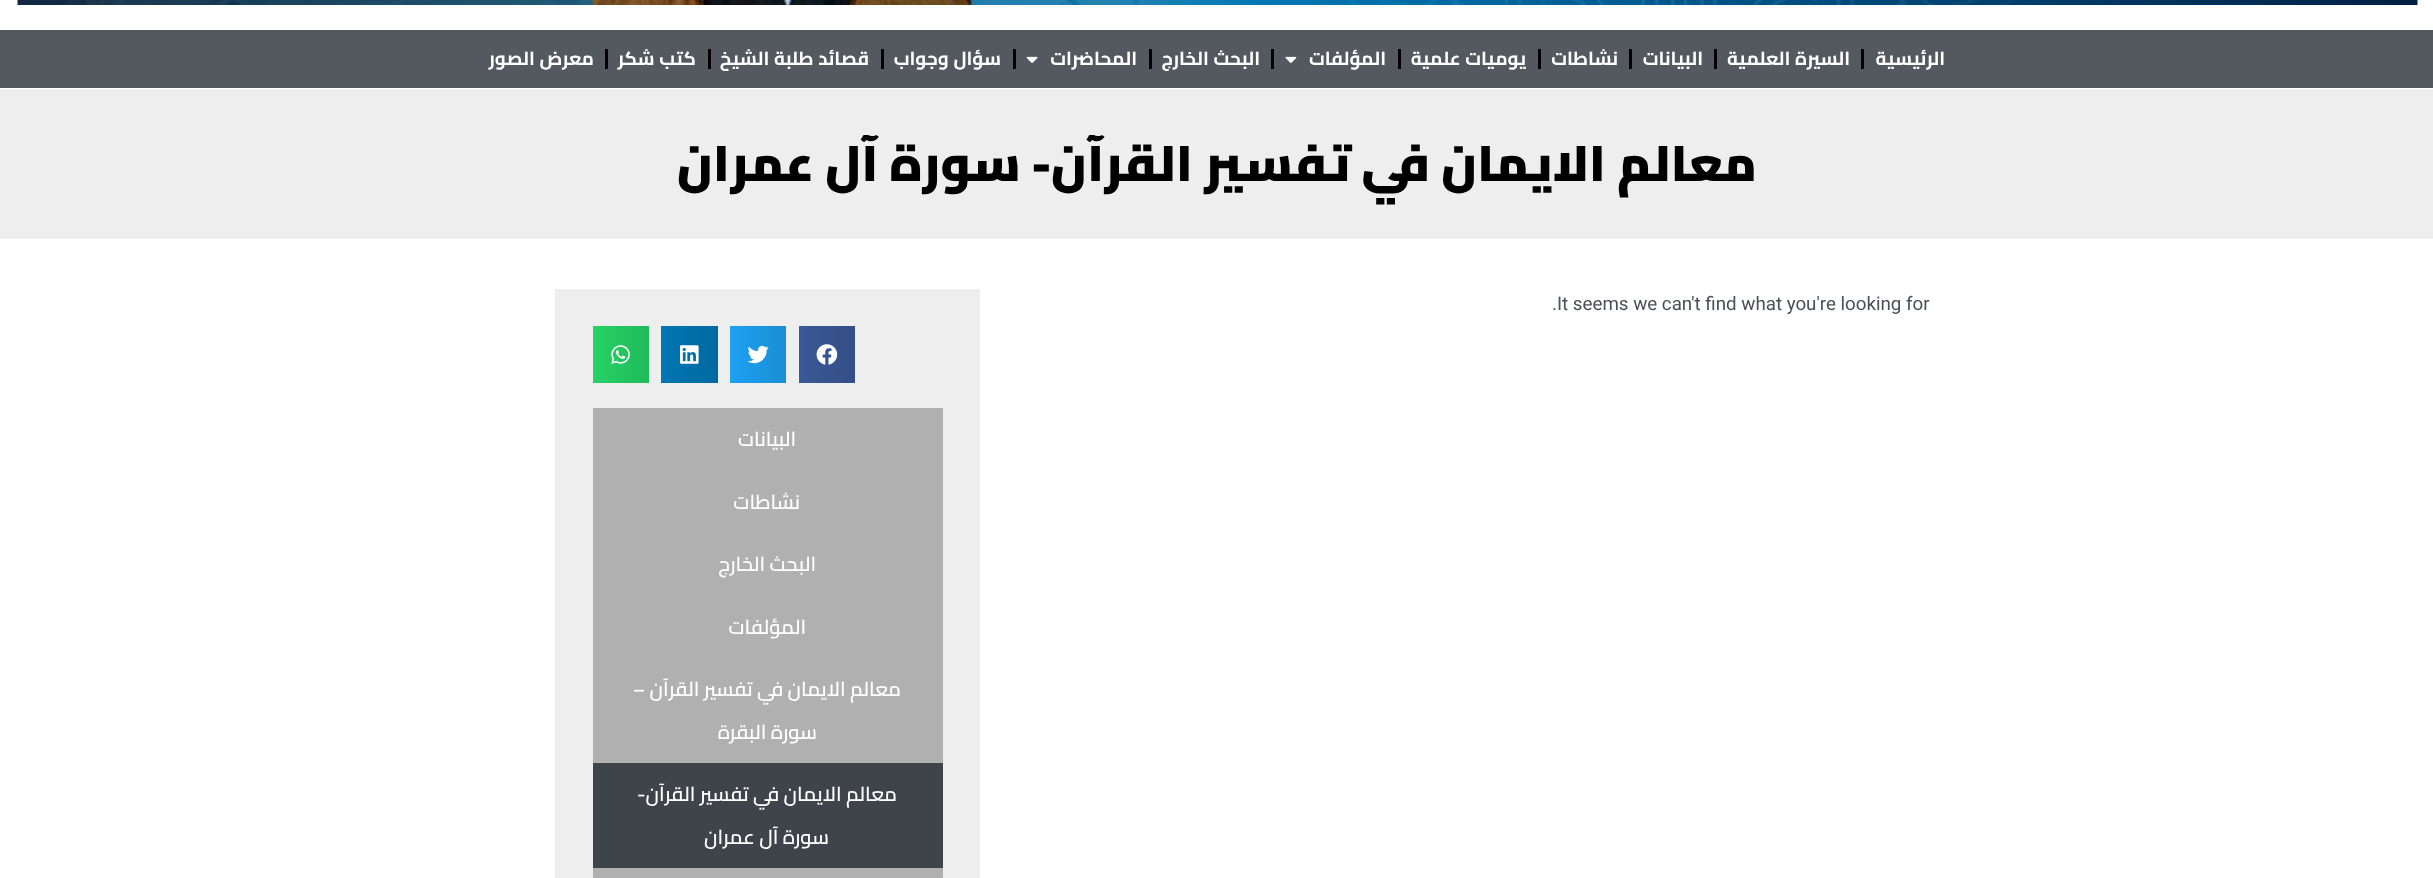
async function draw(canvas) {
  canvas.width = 2433
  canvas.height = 878
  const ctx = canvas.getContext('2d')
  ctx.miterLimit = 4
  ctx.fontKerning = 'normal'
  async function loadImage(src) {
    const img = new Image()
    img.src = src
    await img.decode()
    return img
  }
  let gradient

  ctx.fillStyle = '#fff'
  ctx.fillRect(0, 0, 2433, 878)
  ctx.drawImage(await loadImage('image0.png'), 17, 0, 2401, 5)
  ctx.fillStyle = '#54595f'
  ctx.fillRect(0, 30, 2433, 58)
  ctx.direction = 'rtl'
  ctx.font = 'bold 18.75px Cairo'
  ctx.fillStyle = '#fff'
  ctx.fillText('الرئيسية', 1945, 65)
  ctx.fillStyle = '#000'
  ctx.fillRect(1861, 49, 3, 20)
  ctx.fillStyle = '#fff'
  ctx.fillText('السيرة العلمية', 1850, 65)
  ctx.fillStyle = '#000'
  ctx.fillRect(1714, 49, 3, 20)
  ctx.fillStyle = '#fff'
  ctx.fillText('البيانات', 1703, 65)
  ctx.fillStyle = '#000'
  ctx.fillRect(1629, 49, 3, 20)
  ctx.fillStyle = '#fff'
  ctx.fillText('نشاطات', 1618, 65)
  ctx.fillStyle = '#000'
  ctx.fillRect(1538, 49, 3, 20)
  ctx.fillStyle = '#fff'
  ctx.fillText('يوميات علمية', 1526, 65)
  ctx.fillStyle = '#000'
  ctx.fillRect(1398, 49, 3, 20)
  ctx.fillStyle = '#fff'
  ctx.fillText('المؤلفات', 1386, 65)
  ctx.drawImage(await loadImage('image1.png'), 1285, 56, 12, 7)
  ctx.fillStyle = '#000'
  ctx.fillRect(1271, 49, 3, 20)
  ctx.fillStyle = '#fff'
  ctx.fillText('البحث الخارج', 1260, 65)
  ctx.fillStyle = '#000'
  ctx.fillRect(1149, 49, 3, 20)
  ctx.fillStyle = '#fff'
  ctx.fillText('المحاضرات', 1137, 65)
  ctx.drawImage(await loadImage('image2.png'), 1026, 56, 12, 7)
  ctx.fillStyle = '#000'
  ctx.fillRect(1013, 49, 3, 20)
  ctx.fillStyle = '#fff'
  ctx.fillText('سؤال وجواب', 1001, 65)
  ctx.fillStyle = '#000'
  ctx.fillRect(881, 49, 3, 20)
  ctx.fillStyle = '#fff'
  ctx.fillText('قصائد طلبة الشيخ', 869, 65)
  ctx.fillStyle = '#000'
  ctx.fillRect(708, 49, 3, 20)
  ctx.fillStyle = '#fff'
  ctx.fillText('كتب شكر', 696, 65)
  ctx.fillStyle = '#000'
  ctx.fillRect(605, 49, 3, 20)
  ctx.fillStyle = '#fff'
  ctx.fillText('معرض الصور', 594, 65)
  ctx.fillStyle = '#eee'
  ctx.fillRect(0, 89, 2433, 150)
  ctx.font = '900 50px Cairo'
  ctx.fillStyle = '#000'
  ctx.fillText('معالم الايمان في تفسير القرآن- سورة آل عمران', 1757, 181)
  ctx.direction = 'ltr'
  ctx.font = '18.75px Roboto'
  ctx.fillStyle = '#4b4f58'
  ctx.fillText('.It seems we can\'t find what you\'re looking for', 1552, 310)
  ctx.fillStyle = '#eee'
  ctx.fillRect(555, 289, 425, 589)
  gradient = ctx.createLinearGradient(855, 354, 799, 354)
  gradient.addColorStop(0, '#344e86')
  gradient.addColorStop(1, '#3b5998')
  ctx.fillStyle = gradient
  ctx.fillRect(799, 326, 56, 57)
  ctx.drawImage(await loadImage('image3.png'), 816, 344, 22, 21)
  gradient = ctx.createLinearGradient(786, 354, 730, 354)
  gradient.addColorStop(0, '#1a8ed5')
  gradient.addColorStop(1, '#1da1f2')
  ctx.fillStyle = gradient
  ctx.fillRect(730, 326, 56, 57)
  ctx.drawImage(await loadImage('image4.png'), 747, 345, 22, 19)
  gradient = ctx.createLinearGradient(718, 354, 661, 354)
  gradient.addColorStop(0, '#00699f')
  gradient.addColorStop(1, '#0077b5')
  ctx.fillStyle = gradient
  ctx.fillRect(661, 326, 57, 57)
  ctx.drawImage(await loadImage('image5.png'), 680, 345, 19, 19)
  gradient = ctx.createLinearGradient(649, 354, 593, 354)
  gradient.addColorStop(0, '#21ba5a')
  gradient.addColorStop(1, '#25d366')
  ctx.fillStyle = gradient
  ctx.fillRect(593, 326, 56, 57)
  ctx.drawImage(await loadImage('image6.png'), 611, 345, 19, 19)
  ctx.fillStyle = '#b0b0b0'
  ctx.fillRect(593, 408, 350, 470)
  ctx.direction = 'rtl'
  ctx.font = '600 20px Cairo'
  ctx.fillStyle = '#fff'
  ctx.fillText('البيانات', 796, 446)
  ctx.fillText('نشاطات', 800, 509)
  ctx.fillText('البحث الخارج', 816, 571)
  ctx.fillText('المؤلفات', 806, 634)
  ctx.fillText('معالم الايمان في تفسير القرآن –', 901, 696)
  ctx.fillText('سورة البقرة', 817, 739)
  ctx.fillStyle = '#3f444b'
  ctx.fillRect(593, 763, 350, 105)
  ctx.fillStyle = '#fff'
  ctx.fillText('معالم الايمان في تفسير القرآن-', 897, 801)
  ctx.fillText('سورة آل عمران', 829, 844)
}

draw(document.querySelector('canvas'))
